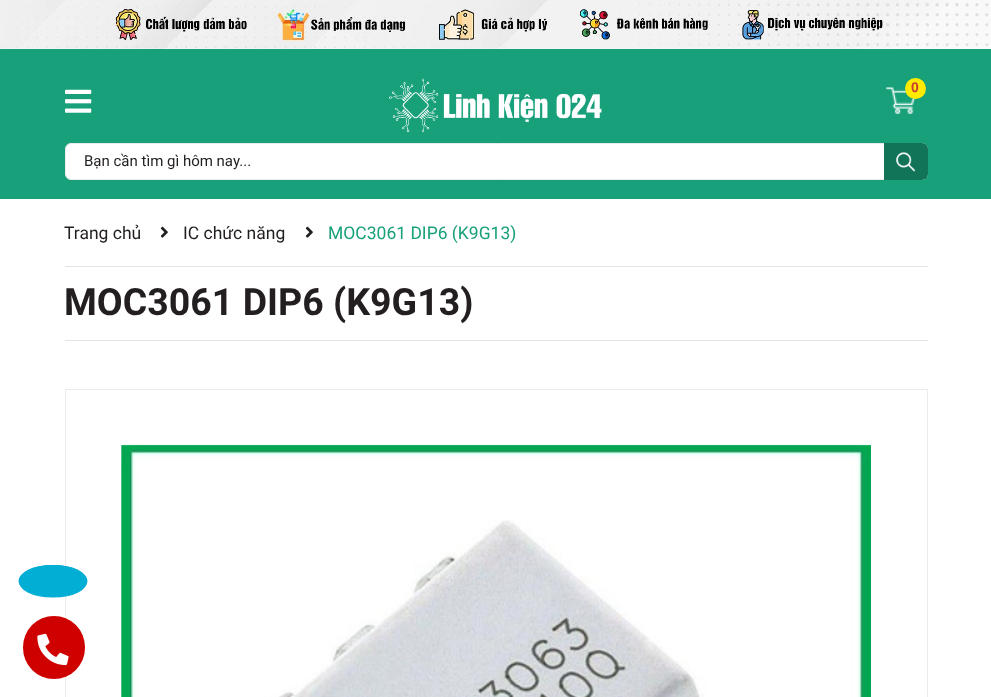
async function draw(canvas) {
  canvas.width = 991
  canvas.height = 697
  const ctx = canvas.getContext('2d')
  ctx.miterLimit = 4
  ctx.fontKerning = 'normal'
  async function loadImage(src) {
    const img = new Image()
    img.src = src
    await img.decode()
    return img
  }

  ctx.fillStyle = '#fff'
  ctx.fillRect(0, 0, 991, 697)
  ctx.drawImage(await loadImage('image0.png'), 0, 0, 991, 49)
  ctx.fillStyle = '#18a07a'
  ctx.fillRect(0, 49, 991, 150)
  ctx.drawImage(await loadImage('image1.png'), 65, 89, 27, 24)
  ctx.drawImage(await loadImage('image2.png'), 389, 78, 213, 55)
  ctx.drawImage(await loadImage('image3.png'), 886, 87, 30, 27)
  ctx.fillStyle = '#ffea00'
  ctx.beginPath()
  ctx.arc(915.5, 88.5, 10.5, 0, 2 * Math.PI)
  ctx.fill()
  ctx.font = 'bold 14px Liberation Sans'
  ctx.fillStyle = '#ca3930'
  ctx.fillText('0', 911, 92)
  ctx.fillStyle = '#fff'
  ctx.beginPath()
  ctx.roundRect(65.5, 143.5, 862, 36, 5.5)
  ctx.fill()
  ctx.strokeStyle = '#ebebeb'
  ctx.stroke()
  ctx.font = '15px Roboto'
  ctx.fillStyle = '#231f20'
  ctx.fillText('Bạn cần tìm gì hôm nay...', 84, 166)
  ctx.fillStyle = '#117458'
  ctx.beginPath()
  ctx.roundRect(884, 143, 44, 37, [0, 6, 6, 0])
  ctx.fill()
  ctx.drawImage(await loadImage('image4.png'), 896, 152, 19, 20)
  ctx.fillStyle = '#e4e4e4'
  ctx.fillRect(65, 266, 863, 1)
  ctx.font = '17.5px Roboto'
  ctx.fillStyle = '#231f20'
  ctx.fillText('Trang chủ', 64, 239)
  ctx.drawImage(await loadImage('image5.png'), 160, 226, 8, 12)
  ctx.fillText('IC chức năng', 183, 239)
  ctx.drawImage(await loadImage('image5.png'), 305, 226, 8, 12)
  ctx.fillStyle = '#18a07a'
  ctx.fillText('MOC3061 DIP6 (K9G13)', 328, 239)
  ctx.fillStyle = '#e4e4e4'
  ctx.fillRect(65, 340, 863, 1)
  ctx.font = 'bold 37.5px Roboto'
  ctx.fillStyle = '#231f20'
  ctx.fillText('MOC3061 DIP6 (K9G13)', 64, 315)
  ctx.strokeRect(65.5, 389.5, 862, 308)
  ctx.drawImage(await loadImage('image6.png'), 121, 444, 750, 253)
  ctx.fillStyle = '#03aed5'
  ctx.beginPath()
  ctx.ellipse(53, 581, 34.5, 16, 0, 0, 2 * Math.PI)
  ctx.fill()
  ctx.beginPath()
  ctx.moveTo(53, 565.5)
  ctx.bezierCurveTo(97.5, 565.5, 97.5, 597, 53, 597)
  ctx.bezierCurveTo(8.5, 597, 8.5, 565.5, 53, 565.5)
  ctx.closePath()
  ctx.strokeStyle = '#03add4'
  ctx.lineWidth = 1.2
  ctx.stroke()
  ctx.fillStyle = '#ce0000'
  ctx.beginPath()
  ctx.roundRect(23, 616, 62, 63, 31)
  ctx.fill()
  ctx.drawImage(await loadImage('image7.png'), 37, 633, 32, 33)
}

draw(document.querySelector('canvas'))
